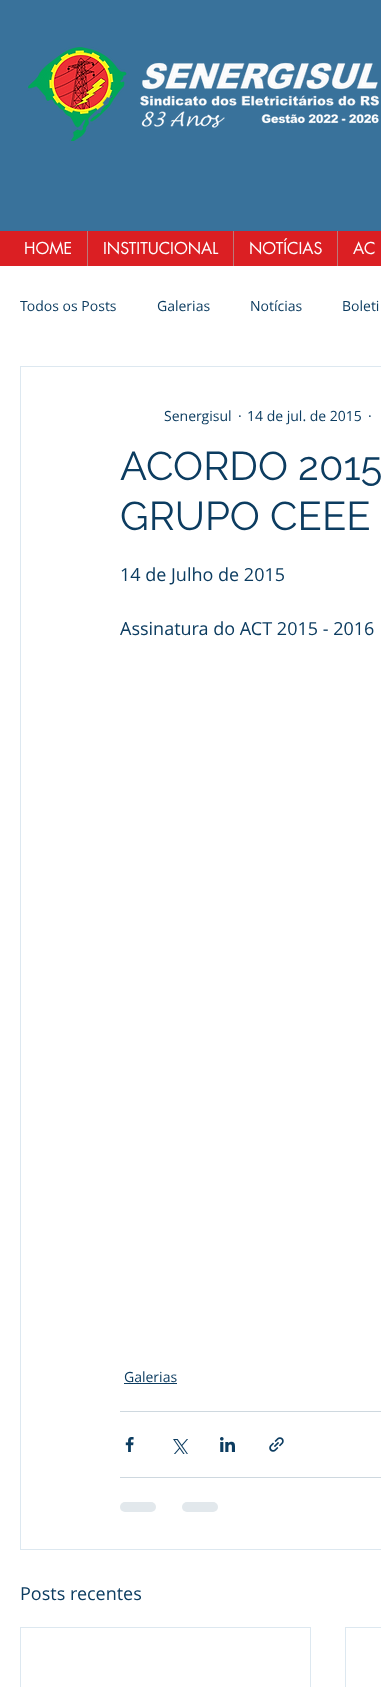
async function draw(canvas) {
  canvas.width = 381
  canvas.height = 1687
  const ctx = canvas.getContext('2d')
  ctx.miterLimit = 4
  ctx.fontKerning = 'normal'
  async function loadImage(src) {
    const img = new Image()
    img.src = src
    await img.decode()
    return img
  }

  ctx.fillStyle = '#fff'
  ctx.fillRect(0, 0, 381, 1687)
  ctx.fillStyle = '#39729b'
  ctx.fillRect(0, 0, 381, 231)
  ctx.drawImage(await loadImage('image0.png'), 28, 47, 351, 94)
  ctx.fillStyle = '#db1f23'
  ctx.fillRect(0, 231, 381, 35)
  ctx.font = '16px futura'
  ctx.fillStyle = '#fff'
  ctx.fillText('HOME', 24, 254)
  ctx.fillStyle = '#bb797a'
  ctx.fillRect(87, 231, 1, 35)
  ctx.fillStyle = '#fff'
  ctx.fillText('INSTITUCIONAL', 103, 254)
  ctx.fillStyle = '#bb797a'
  ctx.fillRect(233, 231, 1, 35)
  ctx.fillStyle = '#fff'
  ctx.fillText('NOTÍCIAS', 249, 254)
  ctx.fillStyle = '#bb797a'
  ctx.fillRect(337, 231, 1, 35)
  ctx.fillStyle = '#fff'
  ctx.fillText('AC', 353, 254)
  ctx.font = '14px Open Sans'
  ctx.fillStyle = '#0c3c60'
  ctx.fillText('Todos os Posts', 20, 311)
  ctx.fillText('Galerias', 157, 311)
  ctx.fillText('Notícias', 250, 311)
  ctx.fillText('Boleti', 342, 311)
  ctx.strokeStyle = '#dde8f0'
  ctx.strokeRect(20.5, 366.5, 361, 1183)
  ctx.fillText('Senergisul', 164, 421)
  ctx.fillText('·', 238, 421)
  ctx.fillText('14 de jul. de 2015', 247, 421)
  ctx.fillText('·', 368, 421)
  ctx.font = '40px Raleway'
  ctx.fillText('ACORDO 2015', 120, 480)
  ctx.fillText('GRUPO CEEE', 120, 530)
  ctx.font = '18px Open Sans'
  ctx.fillText('14 de Julho de 2015', 120, 581)
  ctx.fillText('Assinatura do ACT 2015 - 2016', 120, 635)
  ctx.font = '14px Open Sans'
  ctx.fillText('Galerias', 124, 1382)
  ctx.fillRect(124, 1383, 53, 1)
  ctx.fillStyle = '#ced8df'
  ctx.fillRect(120, 1411, 261, 1)
  ctx.drawImage(await loadImage('image1.png'), 125, 1437, 9, 15)
  ctx.drawImage(await loadImage('image2.png'), 173, 1439, 15, 15)
  ctx.drawImage(await loadImage('image3.png'), 220, 1437, 15, 15)
  ctx.drawImage(await loadImage('image4.png'), 269, 1437, 15, 15)
  ctx.fillRect(120, 1477, 261, 1)
  ctx.fillStyle = '#e2e8ec'
  ctx.beginPath()
  ctx.roundRect(120, 1502, 36, 10, 5)
  ctx.fill()
  ctx.beginPath()
  ctx.roundRect(182, 1502, 36, 10, 5)
  ctx.fill()
  ctx.font = '18px Open Sans'
  ctx.fillStyle = '#0c3c60'
  ctx.fillText('Posts recentes', 20, 1600)
  ctx.strokeRect(20.5, 1627.5, 290, 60)
  ctx.strokeRect(345.5, 1627.5, 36, 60)
}

draw(document.querySelector('canvas'))
